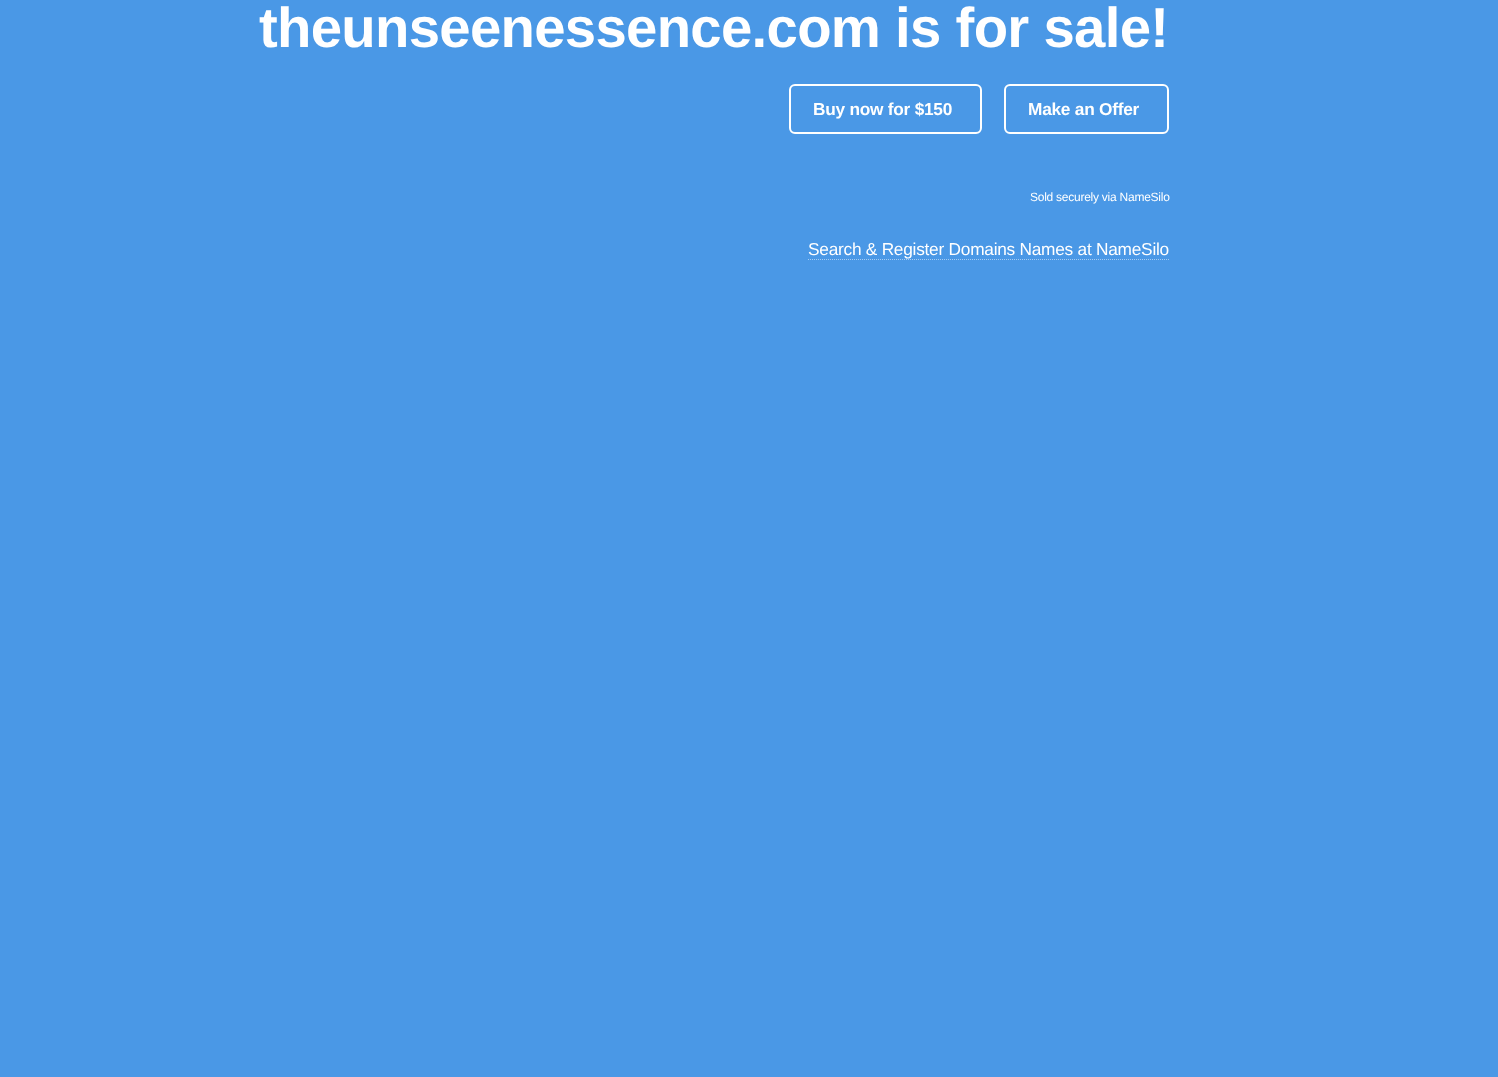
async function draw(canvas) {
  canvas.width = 1498
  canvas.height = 1077
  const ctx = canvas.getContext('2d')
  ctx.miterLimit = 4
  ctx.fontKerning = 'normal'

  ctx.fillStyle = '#4a98e6'
  ctx.fillRect(0, 0, 1498, 1077)
  ctx.letterSpacing = '-0.7px'
  ctx.font = 'bold 56.3px Liberation Sans'
  ctx.fillStyle = '#fff'
  ctx.fillText('theunseenessence.com is for sale!', 259, 47)
  ctx.beginPath()
  ctx.roundRect(790, 85, 191, 48, 5)
  ctx.strokeStyle = '#fff'
  ctx.lineWidth = 2
  ctx.stroke()
  ctx.letterSpacing = '-0.25px'
  ctx.font = 'bold 17.3px Liberation Sans'
  ctx.fillText('Buy now for $150', 813, 115)
  ctx.beginPath()
  ctx.roundRect(1005, 85, 163, 48, 5)
  ctx.stroke()
  ctx.fillText('Make an Offer', 1028, 115)
  ctx.font = '12px Liberation Sans'
  ctx.fillText('Sold securely via NameSilo', 1030, 201)
  ctx.font = '17.3px Liberation Sans'
  ctx.fillText('Search & Register Domains Names at NameSilo', 808, 255)
  ctx.beginPath()
  ctx.moveTo(808, 259.5)
  ctx.lineTo(1169, 259.5)
  ctx.strokeStyle = '#a5ccf3'
  ctx.lineWidth = 1
  ctx.setLineDash([1, 1])
  ctx.stroke()
}

draw(document.querySelector('canvas'))
